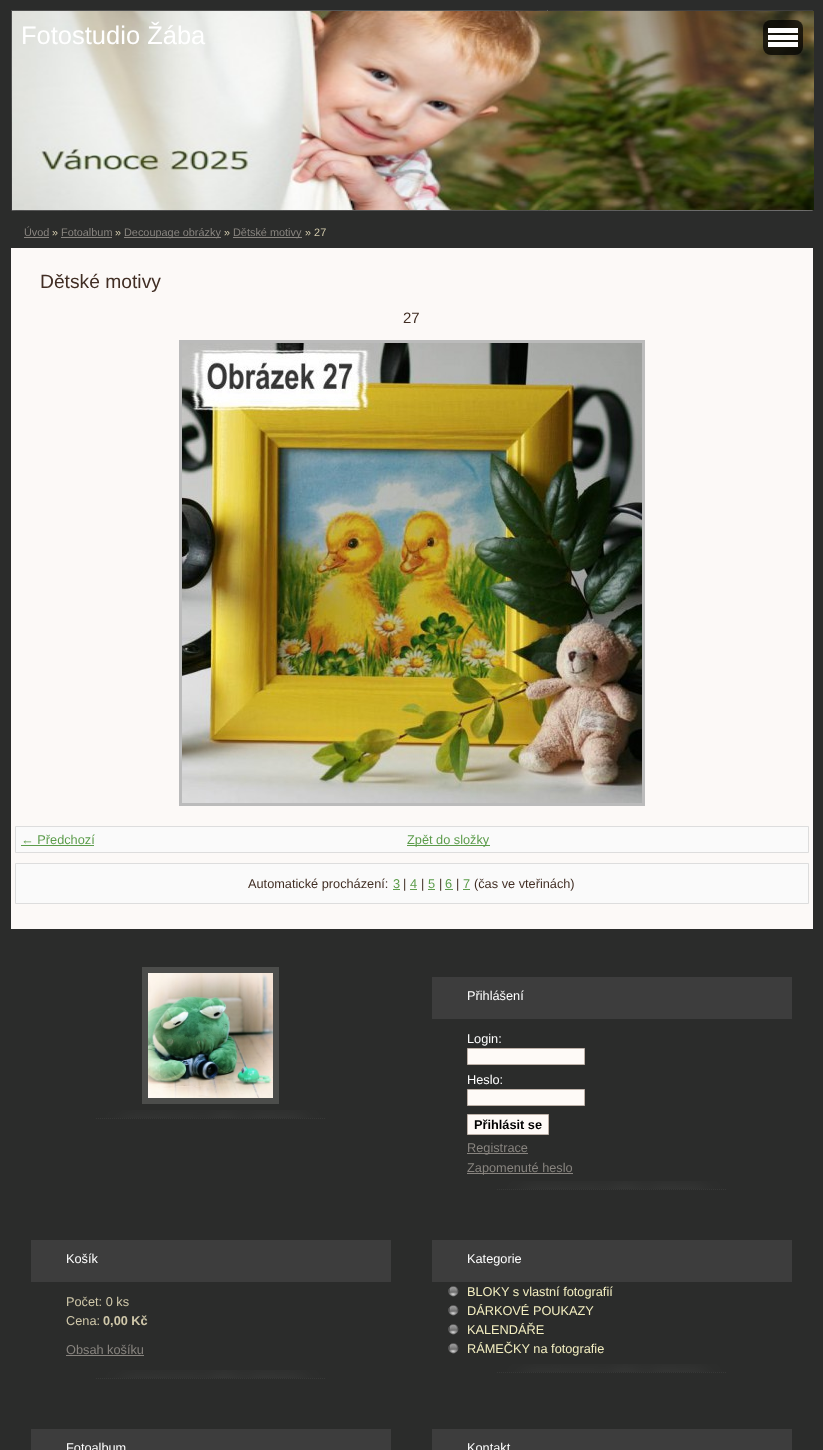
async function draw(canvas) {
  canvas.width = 823
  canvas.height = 1450
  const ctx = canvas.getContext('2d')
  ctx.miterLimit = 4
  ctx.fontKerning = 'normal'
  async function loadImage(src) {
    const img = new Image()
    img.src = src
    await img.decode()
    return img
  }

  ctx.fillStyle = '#2b2c2b'
  ctx.fillRect(0, 0, 823, 1450)
  ctx.drawImage(await loadImage('image0.png'), 11, 10, 802, 201)
  ctx.drawImage(await loadImage('image1.png'), 12, 11, 802, 199)
  ctx.font = '25.5px Liberation Sans'
  ctx.fillStyle = '#fff'
  ctx.fillText('Fotostudio Žába', 21, 44)
  ctx.fillStyle = '#000000b3'
  ctx.beginPath()
  ctx.roundRect(763, 20, 40, 35, 8)
  ctx.fill()
  ctx.fillStyle = '#fff'
  ctx.fillRect(768, 28, 30, 5)
  ctx.fillRect(768, 35, 30, 5)
  ctx.fillRect(768, 42, 30, 5)
  ctx.font = '10.9px Liberation Sans'
  ctx.fillStyle = '#88847f'
  ctx.fillText('Úvod', 24, 236)
  ctx.fillRect(24, 237, 25, 1)
  ctx.fillStyle = '#d0c8aa'
  ctx.fillText('»', 52, 236)
  ctx.fillStyle = '#88847f'
  ctx.fillText('Fotoalbum', 61, 236)
  ctx.fillRect(61, 237, 51, 1)
  ctx.fillStyle = '#d0c8aa'
  ctx.fillText('»', 115, 236)
  ctx.fillStyle = '#88847f'
  ctx.fillRect(124, 237, 97, 1)
  ctx.fillText('Decoupage obrázky', 124, 236)
  ctx.fillStyle = '#d0c8aa'
  ctx.fillText('»', 224, 236)
  ctx.fillStyle = '#88847f'
  ctx.fillRect(233, 237, 69, 1)
  ctx.fillText('Dětské motivy', 233, 236)
  ctx.fillStyle = '#d0c8aa'
  ctx.fillText('» 27', 305, 236)
  ctx.fillStyle = '#fcf9f7'
  ctx.fillRect(11, 248, 802, 681)
  ctx.font = '19.25px Liberation Sans'
  ctx.fillStyle = '#412e24'
  ctx.fillText('Dětské motivy', 40, 288)
  ctx.font = '15px Liberation Sans'
  ctx.fillText('27', 403, 323)
  ctx.strokeStyle = '#bbb'
  ctx.lineWidth = 3
  ctx.strokeRect(180.5, 341.5, 463, 463)
  ctx.drawImage(await loadImage('image2.png'), 182, 343, 460, 460)
  ctx.fillStyle = '#fafafa'
  ctx.beginPath()
  ctx.rect(15.5, 826.5, 793, 26)
  ctx.fill()
  ctx.strokeStyle = '#ddd'
  ctx.lineWidth = 1
  ctx.stroke()
  ctx.font = '12.75px Liberation Sans'
  ctx.fillStyle = '#5c9c4b'
  ctx.fillText('← Předchozí', 21, 844)
  ctx.fillRect(21, 845, 73, 1)
  ctx.fillRect(407, 845, 83, 1)
  ctx.fillText('Zpět do složky', 407, 844)
  ctx.fillStyle = '#fafafa'
  ctx.beginPath()
  ctx.rect(15.5, 863.5, 793, 40)
  ctx.fill()
  ctx.stroke()
  ctx.fillStyle = '#412e24'
  ctx.fillText('Automatické procházení:', 248, 888)
  ctx.fillStyle = '#5c9c4b'
  ctx.fillText('3', 393, 888)
  ctx.fillRect(393, 889, 7, 1)
  ctx.fillStyle = '#412e24'
  ctx.fillText('|', 403, 888)
  ctx.fillStyle = '#5c9c4b'
  ctx.fillText('4', 410, 888)
  ctx.fillRect(410, 889, 7, 1)
  ctx.fillStyle = '#412e24'
  ctx.fillText('|', 421, 888)
  ctx.fillStyle = '#5c9c4b'
  ctx.fillText('5', 428, 888)
  ctx.fillRect(428, 889, 7, 1)
  ctx.fillStyle = '#412e24'
  ctx.fillText('|', 439, 888)
  ctx.fillStyle = '#5c9c4b'
  ctx.fillText('6', 445, 888)
  ctx.fillRect(445, 889, 8, 1)
  ctx.fillStyle = '#412e24'
  ctx.fillText('|', 456, 888)
  ctx.fillStyle = '#5c9c4b'
  ctx.fillText('7', 463, 888)
  ctx.fillRect(463, 889, 7, 1)
  ctx.fillStyle = '#412e24'
  ctx.fillText('(čas ve vteřinách)', 474, 888)
  ctx.drawImage(await loadImage('image3.png'), 96, 1110, 229, 9)
  ctx.strokeStyle = '#4c4d4b'
  ctx.lineWidth = 6
  ctx.strokeRect(145, 970, 131, 131)
  ctx.drawImage(await loadImage('image4.png'), 148, 973, 125, 125)
  ctx.fillStyle = '#3d3d3d'
  ctx.fillRect(432, 977, 360, 42)
  ctx.fillStyle = '#fff'
  ctx.fillText('Přihlášení', 467, 1000)
  ctx.drawImage(await loadImage('image3.png'), 497, 1181, 229, 9)
  ctx.fillText('Login:', 467, 1043)
  ctx.fillStyle = '#fefaf7'
  ctx.beginPath()
  ctx.rect(467.5, 1048.5, 117, 16)
  ctx.fill()
  ctx.strokeStyle = '#bdb1a8'
  ctx.lineWidth = 1
  ctx.stroke()
  ctx.fillStyle = '#fff'
  ctx.fillText('Heslo:', 467, 1084)
  ctx.fillStyle = '#fefaf7'
  ctx.beginPath()
  ctx.rect(467.5, 1089.5, 117, 16)
  ctx.fill()
  ctx.stroke()
  ctx.beginPath()
  ctx.rect(467.5, 1114.5, 81, 20)
  ctx.fill()
  ctx.stroke()
  ctx.font = 'bold 12.75px Liberation Sans'
  ctx.fillStyle = '#000'
  ctx.fillText('Přihlásit se', 474, 1129)
  ctx.fillStyle = '#88847f'
  ctx.fillRect(467, 1153, 61, 1)
  ctx.font = '12.75px Liberation Sans'
  ctx.fillText('Registrace', 467, 1152)
  ctx.fillRect(467, 1173, 106, 1)
  ctx.fillText('Zapomenuté heslo', 467, 1172)
  ctx.fillStyle = '#3d3d3d'
  ctx.fillRect(31, 1240, 360, 42)
  ctx.fillStyle = '#fff'
  ctx.fillText('Košík', 66, 1263)
  ctx.drawImage(await loadImage('image3.png'), 96, 1370, 229, 9)
  ctx.fillStyle = '#d0c8aa'
  ctx.fillText('Počet: 0 ks', 66, 1306)
  ctx.fillText('Cena:', 66, 1325)
  ctx.font = 'bold 12.75px Liberation Sans'
  ctx.fillText('0,00 Kč', 103, 1325)
  ctx.font = '12.75px Liberation Sans'
  ctx.fillStyle = '#88847f'
  ctx.fillText('Obsah košíku', 66, 1354)
  ctx.fillRect(66, 1355, 78, 1)
  ctx.fillStyle = '#3d3d3d'
  ctx.fillRect(432, 1240, 360, 42)
  ctx.fillStyle = '#fff'
  ctx.fillText('Kategorie', 467, 1263)
  ctx.drawImage(await loadImage('image3.png'), 497, 1364, 229, 9)
  ctx.drawImage(await loadImage('image5.png'), 448, 1286, 11, 11)
  ctx.fillStyle = '#f3eec0'
  ctx.fillText('BLOKY s vlastní fotografií', 467, 1296)
  ctx.drawImage(await loadImage('image5.png'), 448, 1305, 11, 11)
  ctx.fillText('DÁRKOVÉ POUKAZY', 467, 1315)
  ctx.drawImage(await loadImage('image5.png'), 448, 1324, 11, 11)
  ctx.fillText('KALENDÁŘE', 467, 1334)
  ctx.drawImage(await loadImage('image5.png'), 448, 1343, 11, 11)
  ctx.fillText('RÁMEČKY na fotografie', 467, 1353)
  ctx.fillStyle = '#3d3d3d'
  ctx.fillRect(31, 1429, 360, 21)
  ctx.fillStyle = '#fff'
  ctx.fillText('Fotoalbum', 66, 1452)
  ctx.fillStyle = '#3d3d3d'
  ctx.fillRect(432, 1429, 360, 21)
  ctx.fillStyle = '#fff'
  ctx.fillText('Kontakt', 467, 1452)
}

draw(document.querySelector('canvas'))
